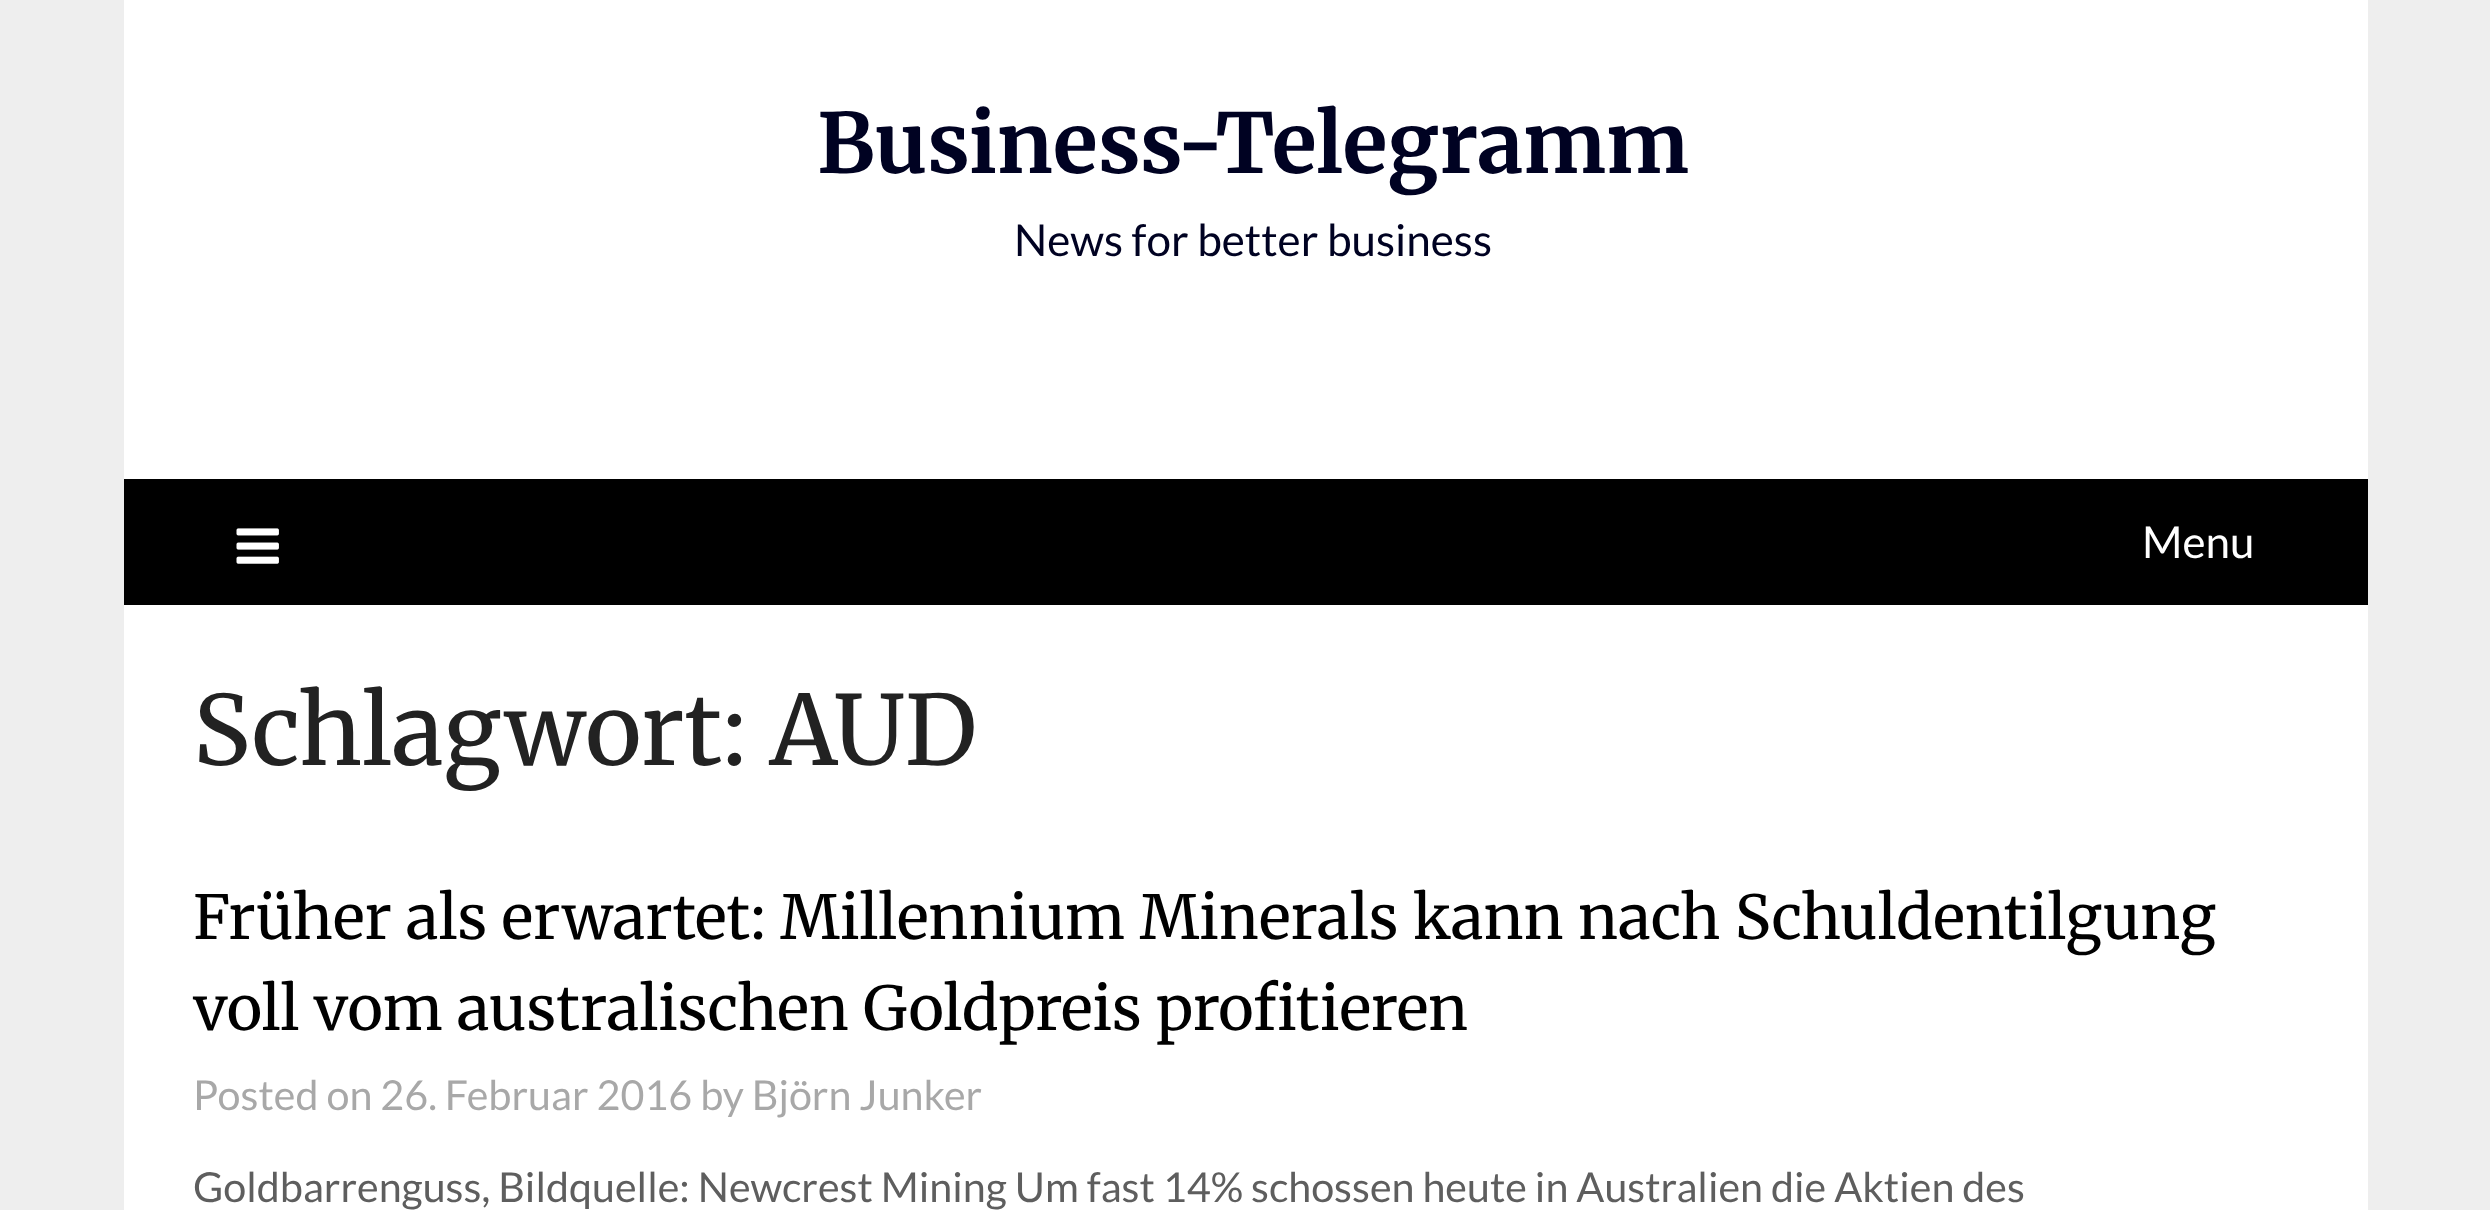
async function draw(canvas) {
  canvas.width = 2490
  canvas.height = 1210
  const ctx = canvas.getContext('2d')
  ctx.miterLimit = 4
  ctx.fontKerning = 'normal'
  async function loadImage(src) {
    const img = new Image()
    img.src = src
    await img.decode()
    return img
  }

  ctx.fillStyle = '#eee'
  ctx.fillRect(0, 0, 2490, 1210)
  ctx.fillStyle = '#fff'
  ctx.fillRect(124, 0, 2244, 479)
  ctx.font = 'bold 82.5px Merriweather'
  ctx.fillStyle = '#000222'
  ctx.fillText('Business-Telegramm', 817, 173)
  ctx.font = '44px Lato'
  ctx.fillText('News for better business', 1014, 256)
  ctx.fillStyle = '#000'
  ctx.fillRect(124, 479, 2244, 126)
  ctx.drawImage(await loadImage('image0.png'), 236, 528, 43, 36)
  ctx.fillStyle = '#fff'
  ctx.fillText('Menu', 2142, 558)
  ctx.fillRect(124, 605, 2244, 605)
  ctx.font = '96.25px Merriweather'
  ctx.fillStyle = '#222'
  ctx.fillText('Schlagwort: AUD', 193, 765)
  ctx.font = '60.5px Merriweather'
  ctx.fillStyle = '#000'
  ctx.fillText('Früher als erwartet: Millennium Minerals kann nach Schuldentilgung', 193, 939)
  ctx.fillText('voll vom australischen Goldpreis profitieren', 193, 1030)
  ctx.font = '41.25px Lato'
  ctx.fillStyle = '#a8a8a8'
  ctx.fillText('Posted on 26. Februar 2016 by Björn Junker', 193, 1110)
  ctx.fillStyle = '#5e5e5e'
  ctx.fillText('Goldbarrenguss, Bildquelle: Newcrest Mining Um fast 14% schossen heute in Australien die Aktien des', 193, 1202)
}

draw(document.querySelector('canvas'))
